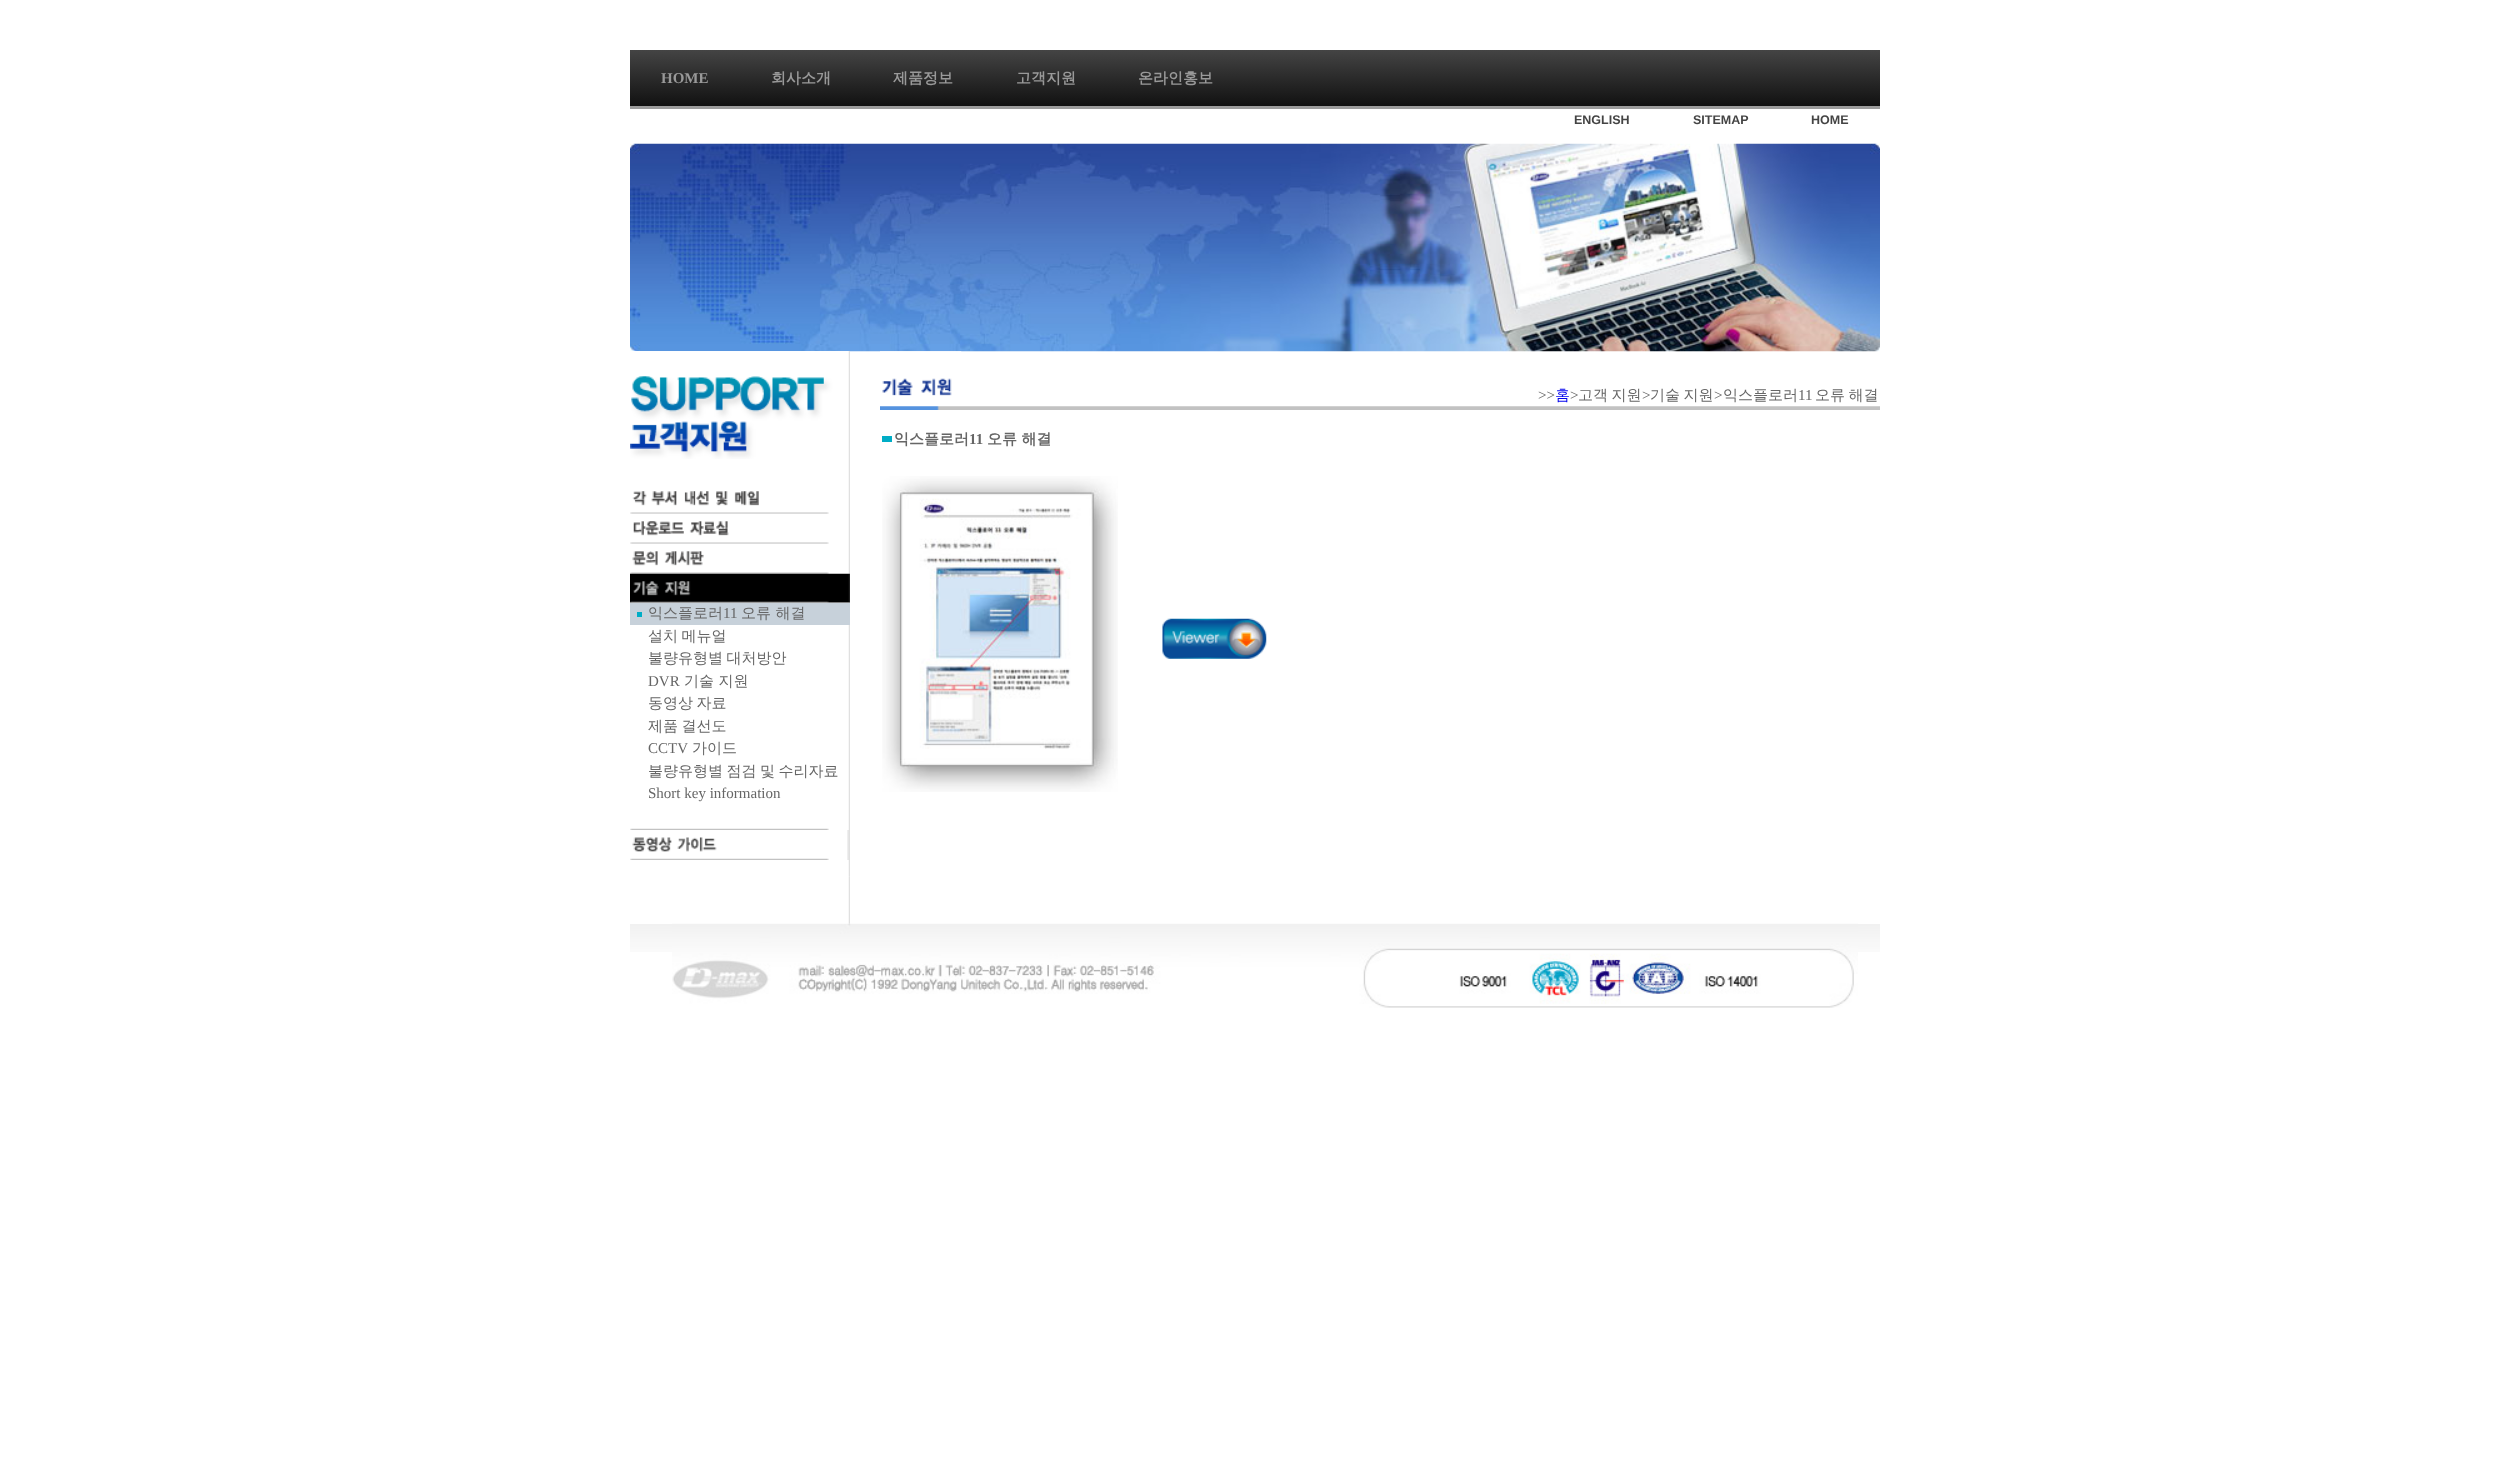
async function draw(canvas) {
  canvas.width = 2508
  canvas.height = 1469
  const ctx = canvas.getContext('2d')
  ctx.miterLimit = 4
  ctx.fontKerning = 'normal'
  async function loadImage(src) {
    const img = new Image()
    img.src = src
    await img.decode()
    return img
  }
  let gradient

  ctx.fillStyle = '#fff'
  ctx.fillRect(0, 0, 2508, 1469)
  ctx.fillStyle = '#9c9c9c'
  ctx.filter = 'blur(0.5px)'
  ctx.beginPath()
  ctx.rect(630, 53, 1250, 56)
  ctx.fill()
  ctx.filter = 'none'
  gradient = ctx.createLinearGradient(1255, 50, 1255, 106)
  gradient.addColorStop(0, '#444')
  gradient.addColorStop(1, '#111')
  ctx.fillStyle = gradient
  ctx.fillRect(630, 50, 1250, 56)
  ctx.font = 'bold 15px Liberation Serif'
  ctx.fillStyle = '#999'
  ctx.fillText('HOME', 661, 83)
  ctx.font = 'bold 15px WenQuanYi Zen Hei'
  ctx.fillText('회사소개', 771, 83)
  ctx.fillText('제품정보', 893, 83)
  ctx.fillText('고객지원', 1016, 83)
  ctx.fillText('온라인홍보', 1138, 83)
  ctx.font = 'bold 12.5px Liberation Sans'
  ctx.fillStyle = '#444'
  ctx.fillText('ENGLISH', 1574, 124)
  ctx.fillText('SITEMAP', 1693, 124)
  ctx.fillText('HOME', 1811, 124)
  ctx.drawImage(await loadImage('image0.png'), 630, 143, 1250, 209)
  ctx.drawImage(await loadImage('image1.png'), 880, 351, 82, 45)
  ctx.font = '15px Liberation Serif'
  ctx.fillStyle = '#666'
  ctx.fillText('>>', 1538, 400)
  ctx.font = '500 15px WenQuanYi Zen Hei'
  ctx.fillStyle = '#00e'
  ctx.fillText('홈', 1555, 400)
  ctx.font = '15px Liberation Serif'
  ctx.fillStyle = '#666'
  ctx.fillText('>', 1570, 400)
  ctx.wordSpacing = '-1px'
  ctx.font = '500 15px WenQuanYi Zen Hei'
  ctx.fillText('고객 지원', 1578, 400)
  ctx.wordSpacing = '0px'
  ctx.font = '15px Liberation Serif'
  ctx.fillText('>', 1642, 400)
  ctx.wordSpacing = '-1px'
  ctx.font = '500 15px WenQuanYi Zen Hei'
  ctx.fillText('기술 지원', 1650, 400)
  ctx.wordSpacing = '0px'
  ctx.font = '15px Liberation Serif'
  ctx.fillText('>', 1714, 400)
  ctx.font = '500 15px WenQuanYi Zen Hei'
  ctx.fillText('익스플로러', 1723, 400)
  ctx.font = '15px Liberation Serif'
  ctx.fillText('11', 1798, 400)
  ctx.wordSpacing = '-1px'
  ctx.font = '500 15px WenQuanYi Zen Hei'
  ctx.fillText('오류 해결', 1815, 400)
  ctx.drawImage(await loadImage('image2.png'), 880, 406, 1000, 4)
  ctx.fillStyle = '#00adc6'
  ctx.fillRect(882, 436, 10, 6)
  ctx.wordSpacing = '0px'
  ctx.font = 'bold 15px WenQuanYi Zen Hei'
  ctx.fillStyle = '#666'
  ctx.fillText('익스플로러', 894, 444)
  ctx.font = 'bold 15px Liberation Serif'
  ctx.fillText('11', 969, 444)
  ctx.font = 'bold 15px WenQuanYi Zen Hei'
  ctx.fillText('오류 해결', 987, 444)
  ctx.drawImage(await loadImage('image3.png'), 882, 476, 236, 316)
  ctx.drawImage(await loadImage('image4.png'), 1162, 618, 105, 41)
  ctx.drawImage(await loadImage('image5.png'), 632, 351, 218, 526)
  ctx.drawImage(await loadImage('image6.png'), 630, 351, 220, 108)
  ctx.drawImage(await loadImage('image7.png'), 630, 491, 199, 23)
  ctx.drawImage(await loadImage('image8.png'), 630, 513, 199, 31)
  ctx.drawImage(await loadImage('image9.png'), 630, 543, 199, 31)
  ctx.drawImage(await loadImage('image10.png'), 630, 573, 220, 30)
  ctx.fillStyle = '#c7d1da'
  ctx.fillRect(630, 603, 220, 22)
  ctx.fillStyle = '#00adc6'
  ctx.fillRect(637, 612, 5, 5)
  ctx.font = '500 15px WenQuanYi Zen Hei'
  ctx.fillStyle = '#666'
  ctx.fillText('익스플로러', 648, 618)
  ctx.font = '15px Liberation Serif'
  ctx.fillText('11', 723, 618)
  ctx.font = '500 15px WenQuanYi Zen Hei'
  ctx.fillText('오류 해결', 741, 618)
  ctx.wordSpacing = '-1px'
  ctx.fillText('설치 메뉴얼', 648, 641)
  ctx.fillText('불량유형별 대처방안', 648, 663)
  ctx.wordSpacing = '0px'
  ctx.font = '15px Liberation Serif'
  ctx.fillText('DVR', 648, 686)
  ctx.font = '500 15px WenQuanYi Zen Hei'
  ctx.fillText('기술 지원', 684, 686)
  ctx.wordSpacing = '-1px'
  ctx.fillText('동영상 자료', 648, 708)
  ctx.fillText('제품 결선도', 648, 731)
  ctx.wordSpacing = '0px'
  ctx.font = '15px Liberation Serif'
  ctx.fillText('CCTV', 648, 753)
  ctx.font = '500 15px WenQuanYi Zen Hei'
  ctx.fillText('가이드', 692, 753)
  ctx.wordSpacing = '-1px'
  ctx.fillText('불량유형별 점검 및 수리자료', 648, 776)
  ctx.wordSpacing = '0px'
  ctx.font = '15px Liberation Serif'
  ctx.fillText('Short key information', 648, 798)
  ctx.drawImage(await loadImage('image11.png'), 630, 828, 199, 2)
  ctx.drawImage(await loadImage('image12.png'), 630, 830, 219, 30)
  ctx.drawImage(await loadImage('image13.png'), 848, 876, 2, 48)
  ctx.drawImage(await loadImage('image14.png'), 630, 924, 1250, 28)
  ctx.drawImage(await loadImage('image15.png'), 672, 923, 1186, 85)
}

draw(document.querySelector('canvas'))
